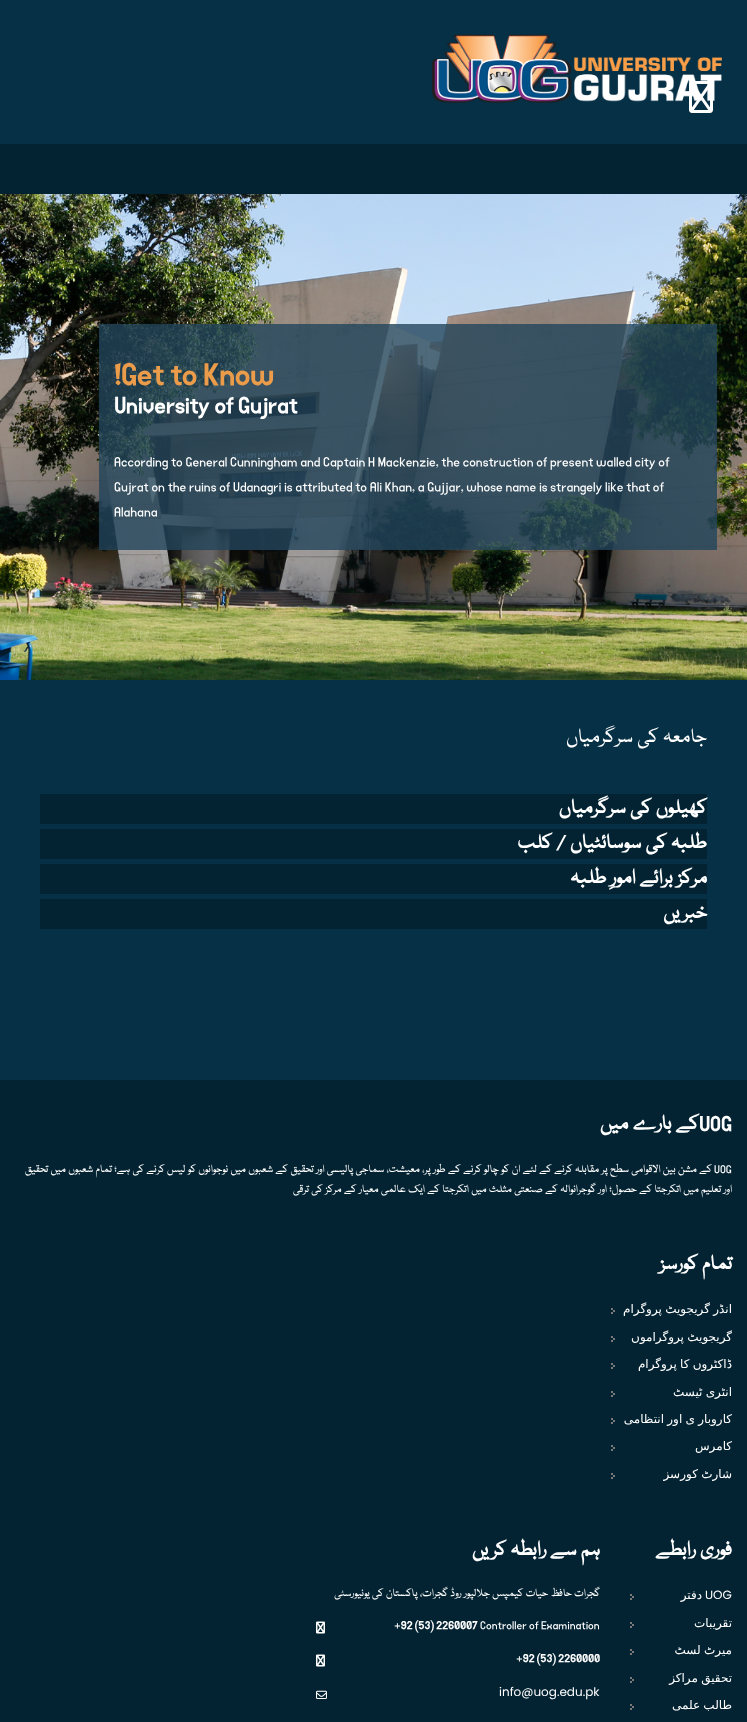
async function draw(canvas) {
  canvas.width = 747
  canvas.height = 1722
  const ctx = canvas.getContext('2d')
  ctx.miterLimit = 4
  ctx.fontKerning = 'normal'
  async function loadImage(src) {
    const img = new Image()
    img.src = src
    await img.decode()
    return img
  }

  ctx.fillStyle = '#063046'
  ctx.fillRect(0, 0, 747, 1722)
  ctx.drawImage(await loadImage('image0.png'), 432, 34, 290, 69)
  ctx.drawImage(await loadImage('image1.png'), 689, 81, 24, 32)
  ctx.fillStyle = '#032332'
  ctx.fillRect(0, 144, 747, 50)
  ctx.drawImage(await loadImage('image2.png'), 0, 194, 747, 486)
  ctx.fillStyle = '#22455bcc'
  ctx.fillRect(99, 324, 618, 226)
  ctx.font = 'bold 32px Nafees'
  ctx.fillStyle = '#eb9c4b'
  ctx.fillText('!Get to Know', 114, 382)
  ctx.font = 'bold 24px Nafees'
  ctx.fillStyle = '#fff'
  ctx.fillText('University of Gujrat', 114, 411)
  ctx.font = '14px Nafees'
  ctx.fillText('According to General Cunningham and Captain H Mackenzie, the construction of present walled city of', 114, 465)
  ctx.fillText('Gujrat on the ruins of Udanagri is attributed to Ali Khan, a Gujjar, whose name is strangely like that of', 114, 490)
  ctx.fillText('Alahana', 114, 515)
  ctx.direction = 'rtl'
  ctx.font = '22px Nafees'
  ctx.fillText('جامعہ کی سرگرمیاں', 707, 742)
  ctx.fillStyle = '#032332'
  ctx.fillRect(40, 794, 667, 30)
  ctx.font = 'bold 22px Nafees'
  ctx.fillStyle = '#fff'
  ctx.fillText('کھیلوں کی سرگرمیاں', 707, 813)
  ctx.fillStyle = '#032332'
  ctx.fillRect(40, 829, 667, 30)
  ctx.fillStyle = '#fff'
  ctx.fillText('طلبہ کی سوسائٹیاں / کلب', 707, 848)
  ctx.fillStyle = '#032332'
  ctx.fillRect(40, 864, 667, 30)
  ctx.fillStyle = '#fff'
  ctx.fillText('مرکز برائے امورِ طلبہ', 707, 883)
  ctx.fillStyle = '#032332'
  ctx.fillRect(40, 899, 667, 30)
  ctx.fillStyle = '#fff'
  ctx.fillText('خبریں', 707, 918)
  ctx.fillStyle = '#032332'
  ctx.fillRect(0, 1080, 747, 642)
  ctx.direction = 'ltr'
  ctx.fillStyle = '#fff'
  ctx.fillText('UOG', 699, 1129)
  ctx.direction = 'rtl'
  ctx.fillText('کے بارے میں', 699, 1129)
  ctx.direction = 'ltr'
  ctx.font = '12px Nafees'
  ctx.fillText('UOG', 714, 1172)
  ctx.direction = 'rtl'
  ctx.fillText('کے مشن بین الاقوامی سطح پر مقابلہ کرنے کے لئے ان کو چالو کرنے کے طور پر، معیشت، سماجی پالیسی اور تحقیق کے شعبوں میں نوجوانوں کو لیس کرنے کی ہے؛ تمام شعبوں میں تحقیق', 712, 1172)
  ctx.fillText('اور تعلیم میں اتکرجتا کے حصول؛ اور گوجرانوالہ کے صنعتی مثلث میں اتکرجتا کے ایک عالمی معیار کے مرکز کی ترقی', 732, 1192)
  ctx.font = 'bold 22px Nafees'
  ctx.fillText('تمام کورسز', 732, 1269)
  ctx.wordSpacing = '-0.5px'
  ctx.font = '12px DejaVu Sans'
  ctx.fillText('انڈر گریجویٹ پروگرام', 732, 1313)
  ctx.drawImage(await loadImage('image3.png'), 611, 1308, 4, 6)
  ctx.fillText('گریجویٹ پروگراموں', 732, 1341)
  ctx.drawImage(await loadImage('image3.png'), 611, 1336, 4, 6)
  ctx.fillText('ڈاکٹروں کا پروگرام', 732, 1368)
  ctx.drawImage(await loadImage('image3.png'), 611, 1363, 4, 6)
  ctx.fillText('انٹری ٹیسٹ', 732, 1396)
  ctx.drawImage(await loadImage('image3.png'), 611, 1391, 4, 6)
  ctx.fillText('کاروبار ی اور انتظامی', 732, 1423)
  ctx.drawImage(await loadImage('image3.png'), 611, 1418, 4, 6)
  ctx.wordSpacing = '0px'
  ctx.fillText('کامرس', 732, 1450)
  ctx.drawImage(await loadImage('image3.png'), 611, 1445, 4, 6)
  ctx.wordSpacing = '-0.5px'
  ctx.fillText('شارٹ کورسز', 732, 1478)
  ctx.drawImage(await loadImage('image3.png'), 611, 1473, 4, 6)
  ctx.wordSpacing = '0px'
  ctx.font = 'bold 22px Nafees'
  ctx.fillText('فوری رابطے', 732, 1555)
  ctx.direction = 'ltr'
  ctx.font = '12px Poppins'
  ctx.fillText('UOG', 705, 1599)
  ctx.direction = 'rtl'
  ctx.font = '12px DejaVu Sans'
  ctx.fillText('دفتر', 702, 1599)
  ctx.drawImage(await loadImage('image3.png'), 630, 1594, 4, 6)
  ctx.fillText('تقریبات', 732, 1627)
  ctx.drawImage(await loadImage('image3.png'), 630, 1622, 4, 6)
  ctx.wordSpacing = '-0.5px'
  ctx.fillText('میرٹ لسٹ', 732, 1654)
  ctx.drawImage(await loadImage('image3.png'), 630, 1649, 4, 6)
  ctx.fillText('تحقیق مراکز', 732, 1682)
  ctx.drawImage(await loadImage('image3.png'), 630, 1677, 4, 6)
  ctx.fillText('طالب علمی', 732, 1709)
  ctx.drawImage(await loadImage('image3.png'), 630, 1704, 4, 6)
  ctx.wordSpacing = '0px'
  ctx.font = 'bold 22px Nafees'
  ctx.fillText('ہم سے رابطہ کریں', 600, 1555)
  ctx.font = '12px Nafees'
  ctx.fillText('گجرات حافظ حیات کیمپس جلالپور روڈ گجرات، پاکستان کی یونیورسٹی', 600, 1596)
  ctx.direction = 'ltr'
  ctx.fillText('Controller of Examination', 480, 1628)
  ctx.font = 'bold 12px Nafees'
  ctx.fillText('+92 (53) 2260007', 394, 1628)
  ctx.drawImage(await loadImage('image4.png'), 316, 1621, 9, 13)
  ctx.fillText('+92 (53) 2260000', 516, 1661)
  ctx.drawImage(await loadImage('image4.png'), 316, 1654, 9, 13)
  ctx.font = '12px Poppins'
  ctx.fillText('info@uog.edu.pk', 499, 1696)
  ctx.drawImage(await loadImage('image5.png'), 316, 1690, 11, 9)
}

draw(document.querySelector('canvas'))
